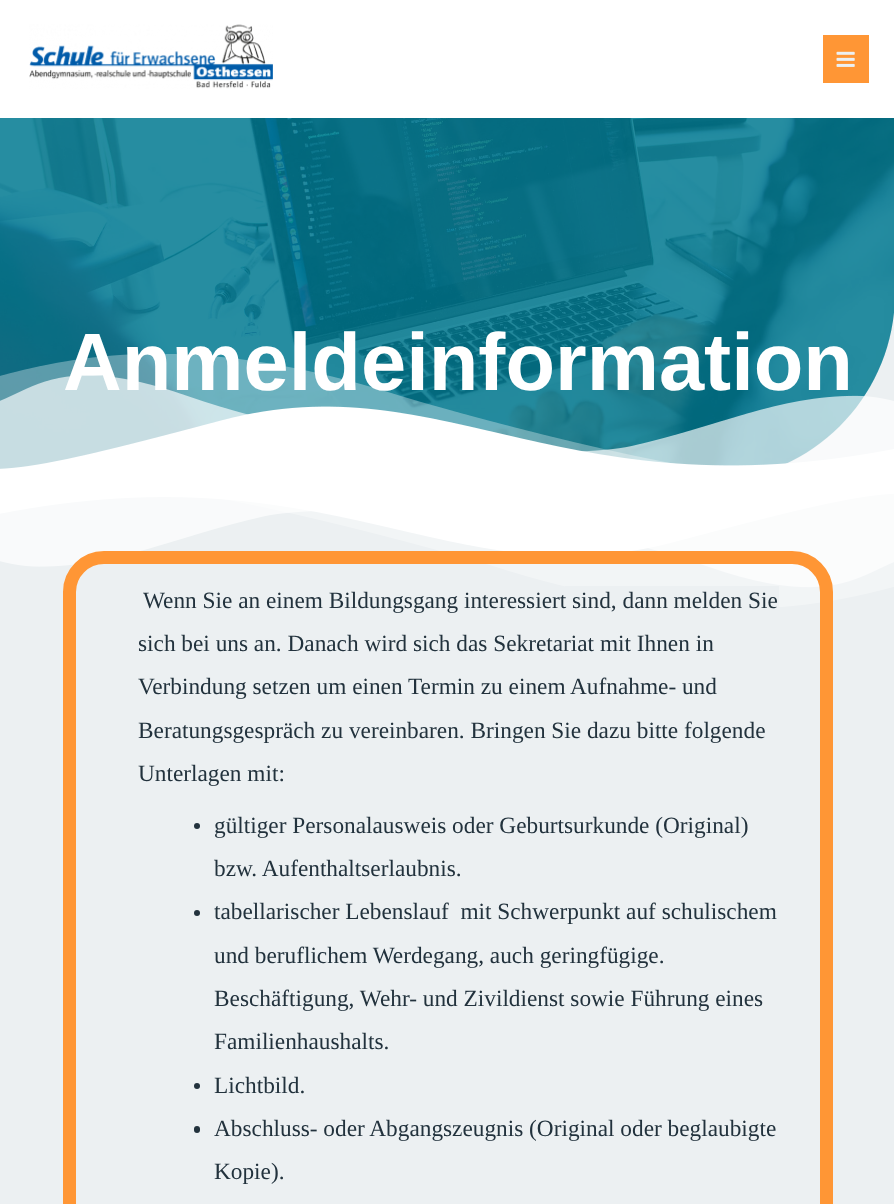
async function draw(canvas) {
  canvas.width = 894
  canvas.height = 1204
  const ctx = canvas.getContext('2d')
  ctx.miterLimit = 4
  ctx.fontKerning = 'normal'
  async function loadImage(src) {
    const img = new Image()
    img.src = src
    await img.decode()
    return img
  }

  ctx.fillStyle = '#ecf0f2'
  ctx.fillRect(0, 0, 894, 1204)
  ctx.fillStyle = '#fff'
  ctx.fillRect(0, 0, 894, 118)
  ctx.drawImage(await loadImage('image0.png'), 29, 24, 244, 65)
  ctx.fillStyle = '#ff9635'
  ctx.fillRect(823, 35, 46, 48)
  ctx.drawImage(await loadImage('image1.png'), 836, 51, 19, 16)
  ctx.fillStyle = '#007991'
  ctx.beginPath()
  ctx.moveTo(0, 118)
  ctx.lineTo(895, 118)
  ctx.lineTo(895, 293)
  ctx.bezierCurveTo(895, 397, 811, 481, 707, 481)
  ctx.lineTo(0, 481)
  ctx.closePath()
  ctx.fill()
  ctx.drawImage(await loadImage('image2.png'), 0, 118, 894, 351)
  ctx.drawImage(await loadImage('image3.png'), 0, 354, 894, 128)
  ctx.font = 'bold 81.25px Liberation Sans'
  ctx.fillStyle = '#fff'
  ctx.fillText('Anmeldeinformation', 63, 390)
  ctx.drawImage(await loadImage('image4.png'), 0, 482, 894, 126)
  ctx.beginPath()
  ctx.roundRect(69.5, 557.5, 757, 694, 34.5)
  ctx.strokeStyle = '#ff9635'
  ctx.lineWidth = 13
  ctx.stroke()
  ctx.fillStyle = '#ecf0f2'
  ctx.fillRect(565, 586, 214, 22)
  ctx.font = '23.3px Liberation Serif'
  ctx.fillStyle = '#22323d'
  ctx.fillText('Wenn Sie an einem Bildungsgang interessiert sind, dann melden Sie', 143, 608)
  ctx.fillText('sich bei uns an. Danach wird sich das Sekretariat mit Ihnen in', 138, 651)
  ctx.fillText('Verbindung setzen um einen Termin zu einem Aufnahme- und', 138, 694)
  ctx.fillText('Beratungsgespräch zu vereinbaren. Bringen Sie dazu bitte folgende', 138, 738)
  ctx.fillText('Unterlagen mit:', 138, 781)
  ctx.beginPath()
  ctx.arc(197, 826, 3, 0, 2 * Math.PI)
  ctx.fill()
  ctx.fillText('gültiger Personalausweis oder Geburtsurkunde (Original)', 214, 833)
  ctx.fillText('bzw. Aufenthaltserlaubnis.', 214, 876)
  ctx.beginPath()
  ctx.arc(197, 913, 3, 0, 2 * Math.PI)
  ctx.fill()
  ctx.fillText('tabellarischer Lebenslauf  mit Schwerpunkt auf schulischem', 214, 919)
  ctx.fillText('und beruflichem Werdegang, auch geringfügige.', 214, 963)
  ctx.fillText('Beschäftigung, Wehr- und Zivildienst sowie Führung eines', 214, 1006)
  ctx.fillText('Familienhaushalts.', 214, 1049)
  ctx.beginPath()
  ctx.arc(197, 1086, 3, 0, 2 * Math.PI)
  ctx.fill()
  ctx.fillText('Lichtbild.', 214, 1093)
  ctx.beginPath()
  ctx.roundRect(194, 1126, 6, 7, 3)
  ctx.fill()
  ctx.fillText('Abschluss- oder Abgangszeugnis (Original oder beglaubigte', 214, 1136)
  ctx.fillText('Kopie).', 214, 1179)
}

draw(document.querySelector('canvas'))
